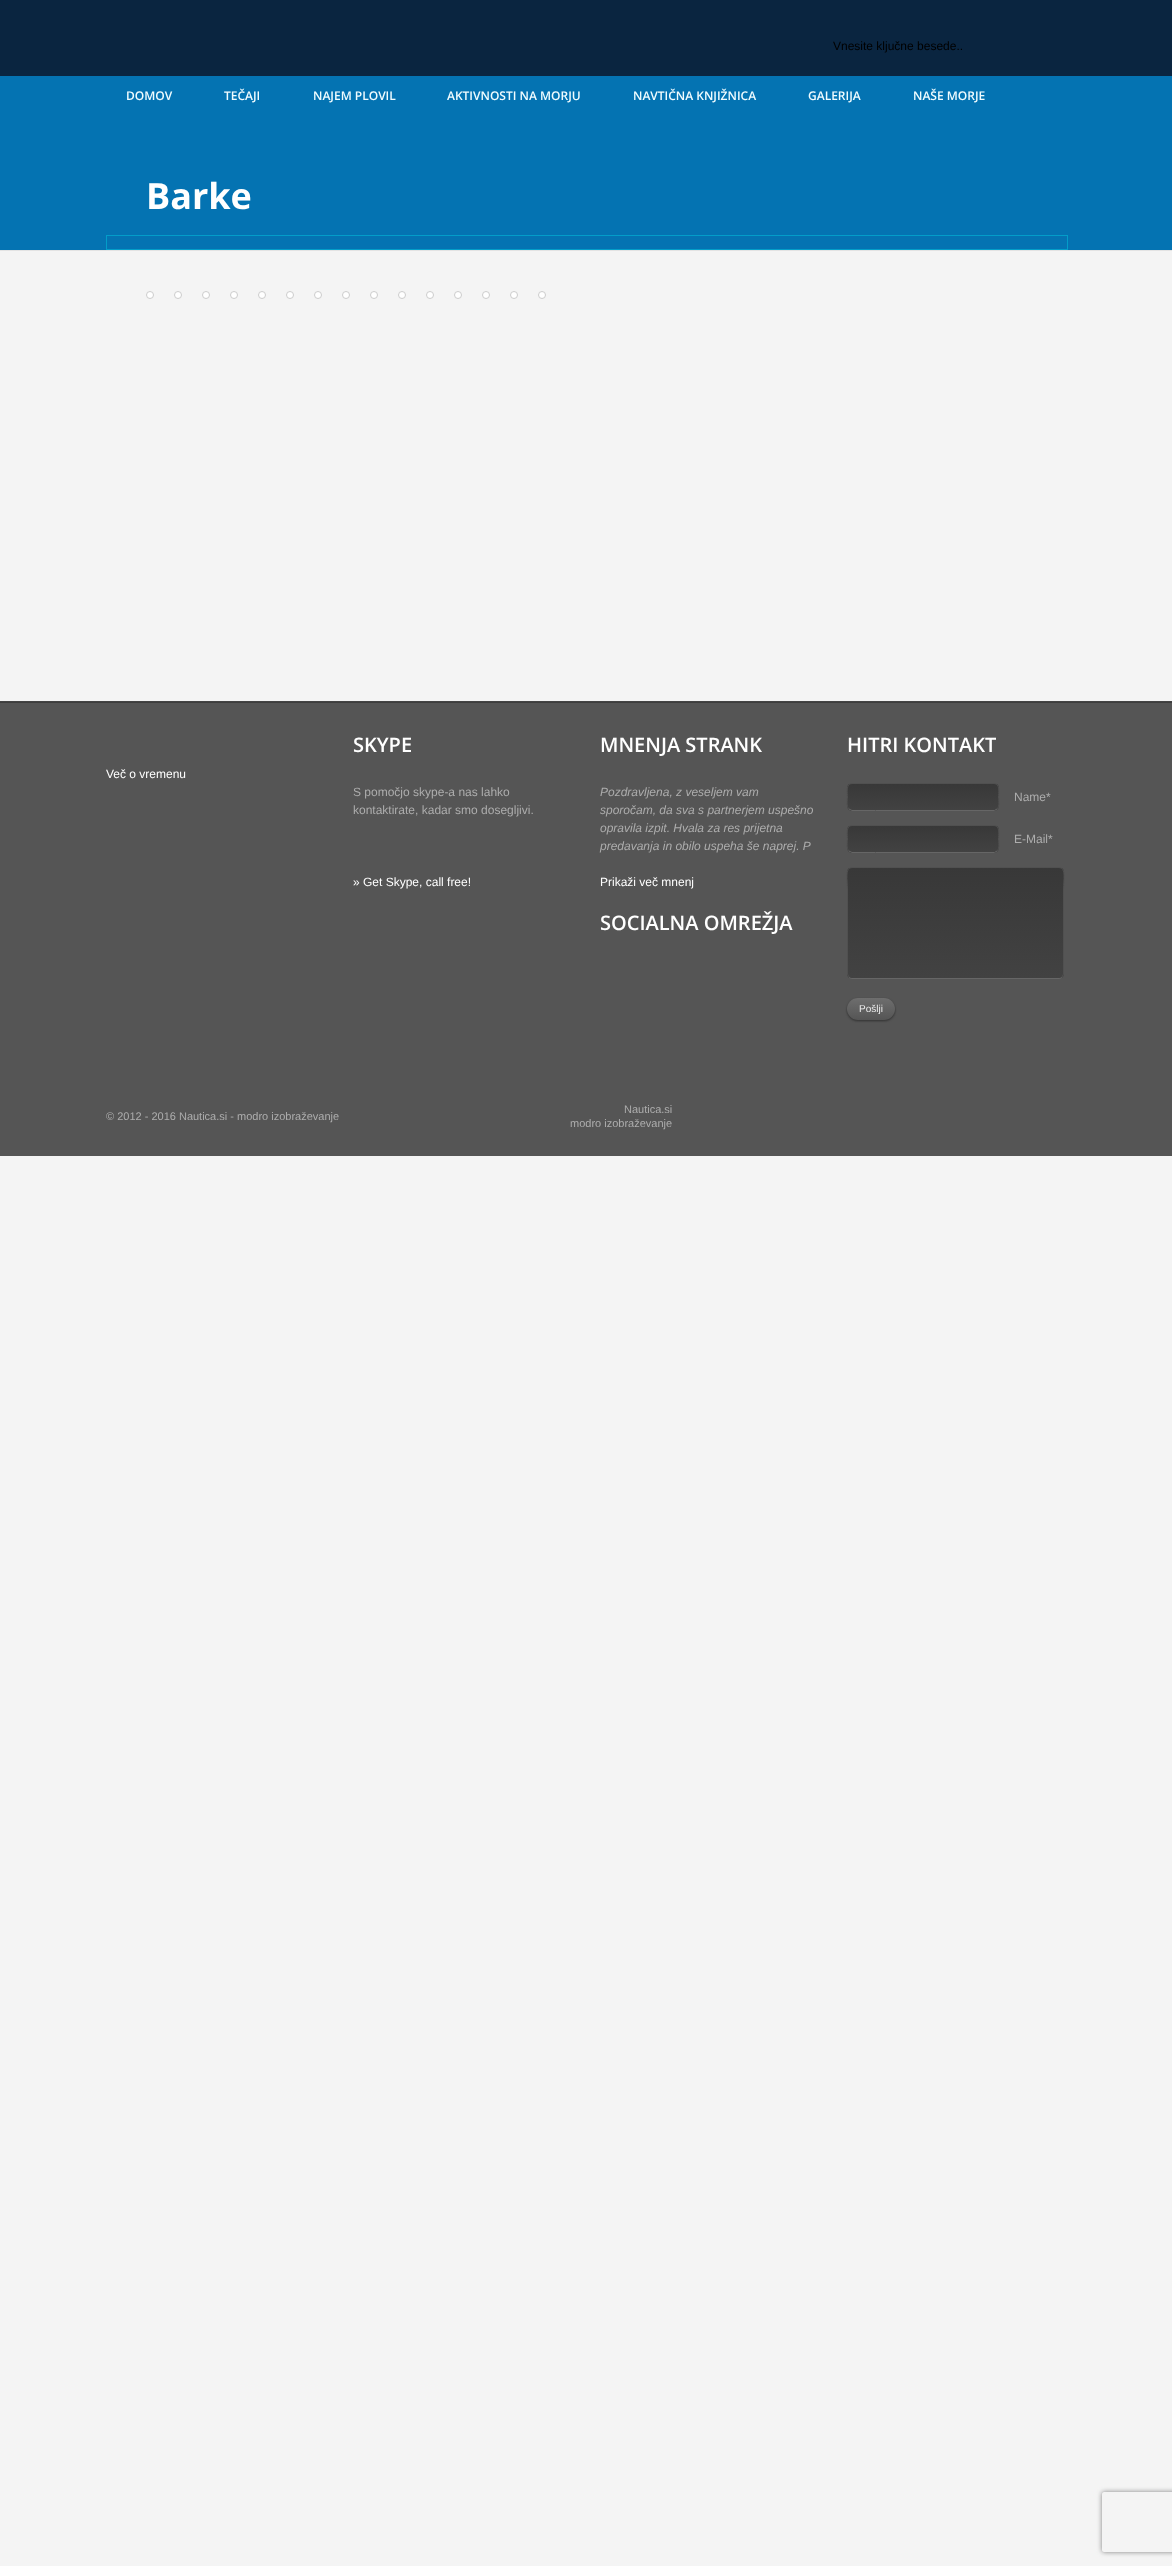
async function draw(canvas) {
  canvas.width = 1172
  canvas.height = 2566
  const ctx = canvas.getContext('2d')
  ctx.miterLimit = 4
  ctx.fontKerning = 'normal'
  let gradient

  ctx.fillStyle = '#f4f4f4'
  ctx.fillRect(0, 0, 1172, 2566)
  ctx.fillStyle = '#0a2540'
  ctx.fillRect(0, 0, 1172, 76)
  ctx.font = '12px Liberation Sans'
  ctx.fillStyle = '#000'
  ctx.fillText('Vnesite ključne besede..', 833, 50)
  ctx.fillStyle = '#0473b2'
  ctx.fillRect(0, 76, 1172, 174)
  ctx.font = '600 12px Open Sans'
  ctx.fillStyle = '#f0fcff'
  ctx.fillText('DOMOV', 126, 100)
  ctx.fillText('TEČAJI', 224, 100)
  ctx.fillText('NAJEM PLOVIL', 313, 100)
  ctx.fillText('AKTIVNOSTI NA MORJU', 447, 100)
  ctx.fillText('NAVTIČNA KNJIŽNICA', 633, 100)
  ctx.fillText('GALERIJA', 808, 100)
  ctx.fillText('NAŠE MORJE', 913, 100)
  ctx.font = 'bold 36px Open Sans'
  ctx.fillStyle = '#fff'
  ctx.fillText('Barke', 146, 209)
  ctx.strokeStyle = '#039dc9'
  ctx.strokeRect(106.5, 235.5, 961, 14)
  ctx.fillStyle = '#e3e3e3'
  ctx.fillRect(0, 250, 1172, 1)
  ctx.fillStyle = '#fff'
  ctx.beginPath()
  ctx.arc(150, 295, 3.5, 0, 2 * Math.PI)
  ctx.fill()
  ctx.strokeStyle = '#ccc'
  ctx.stroke()
  ctx.beginPath()
  ctx.arc(178, 295, 3.5, 0, 2 * Math.PI)
  ctx.fill()
  ctx.stroke()
  ctx.beginPath()
  ctx.arc(206, 295, 3.5, 0, 2 * Math.PI)
  ctx.fill()
  ctx.stroke()
  ctx.beginPath()
  ctx.arc(234, 295, 3.5, 0, 2 * Math.PI)
  ctx.fill()
  ctx.stroke()
  ctx.beginPath()
  ctx.arc(262, 295, 3.5, 0, 2 * Math.PI)
  ctx.fill()
  ctx.stroke()
  ctx.beginPath()
  ctx.arc(290, 295, 3.5, 0, 2 * Math.PI)
  ctx.fill()
  ctx.stroke()
  ctx.beginPath()
  ctx.arc(318, 295, 3.5, 0, 2 * Math.PI)
  ctx.fill()
  ctx.stroke()
  ctx.beginPath()
  ctx.arc(346, 295, 3.5, 0, 2 * Math.PI)
  ctx.fill()
  ctx.stroke()
  ctx.beginPath()
  ctx.arc(374, 295, 3.5, 0, 2 * Math.PI)
  ctx.fill()
  ctx.stroke()
  ctx.beginPath()
  ctx.arc(402, 295, 3.5, 0, 2 * Math.PI)
  ctx.fill()
  ctx.stroke()
  ctx.beginPath()
  ctx.arc(430, 295, 3.5, 0, 2 * Math.PI)
  ctx.fill()
  ctx.stroke()
  ctx.beginPath()
  ctx.arc(458, 295, 3.5, 0, 2 * Math.PI)
  ctx.fill()
  ctx.stroke()
  ctx.beginPath()
  ctx.arc(486, 295, 3.5, 0, 2 * Math.PI)
  ctx.fill()
  ctx.stroke()
  ctx.beginPath()
  ctx.arc(514, 295, 3.5, 0, 2 * Math.PI)
  ctx.fill()
  ctx.stroke()
  ctx.beginPath()
  ctx.arc(542, 295, 3.5, 0, 2 * Math.PI)
  ctx.fill()
  ctx.stroke()
  ctx.fillStyle = '#444'
  ctx.fillRect(0, 701, 1172, 1)
  ctx.fillStyle = '#555'
  ctx.fillRect(0, 703, 1172, 453)
  ctx.fillStyle = '#3e3e3e'
  ctx.fillRect(0, 702, 1172, 1)
  ctx.font = '12px Liberation Sans'
  ctx.fillStyle = '#fff'
  ctx.fillText('Več o vremenu', 106, 778)
  ctx.font = '600 20px Open Sans'
  ctx.fillText('SKYPE', 353, 752)
  ctx.font = '12px Liberation Sans'
  ctx.fillStyle = '#adadad'
  ctx.fillText('S pomočjo skype-a nas lahko', 353, 796)
  ctx.fillText('kontaktirate, kadar smo dosegljivi.', 353, 814)
  ctx.fillStyle = '#fff'
  ctx.fillText('» Get Skype, call free!', 353, 886)
  ctx.font = '600 20px Open Sans'
  ctx.fillText('MNENJA STRANK', 600, 752)
  ctx.font = 'italic 12px Liberation Sans'
  ctx.fillStyle = '#adadad'
  ctx.fillText('Pozdravljena, z veseljem vam', 600, 796)
  ctx.fillText('sporočam, da sva s partnerjem uspešno', 600, 814)
  ctx.fillText('opravila izpit. Hvala za res prijetna', 600, 832)
  ctx.fillText('predavanja in obilo uspeha še naprej. P', 600, 850)
  ctx.font = '12px Liberation Sans'
  ctx.fillStyle = '#fff'
  ctx.fillText('Prikaži več mnenj', 600, 886)
  ctx.font = '600 20px Open Sans'
  ctx.fillText('SOCIALNA OMREŽJA', 600, 930)
  ctx.fillText('HITRI KONTAKT', 847, 752)
  ctx.save()
  ctx.beginPath()
  ctx.roundRect(847, 783, 152, 28, 5)
  ctx.clip()
  gradient = ctx.createLinearGradient(848, 784, 848, 810)
  gradient.addColorStop(0, '#383838')
  gradient.addColorStop(1, '#424242')
  ctx.fillStyle = gradient
  ctx.fillRect(847, 784, 152, 26)
  gradient = ctx.createLinearGradient(848, 810, 848, 836)
  gradient.addColorStop(0, '#383838')
  gradient.addColorStop(1, '#424242')
  ctx.fillStyle = gradient
  ctx.fillRect(847, 810, 152, 1)
  ctx.restore()
  ctx.beginPath()
  ctx.moveTo(997, 809)
  ctx.lineTo(994.5, 810.5)
  ctx.lineTo(875.5, 810.5)
  ctx.lineTo(852, 810.5)
  ctx.lineTo(849, 809)
  ctx.strokeStyle = '#666'
  ctx.stroke()
  ctx.beginPath()
  ctx.moveTo(849, 809)
  ctx.bezierCurveTo(846, 806.5, 847.5, 800, 847.5, 797)
  ctx.bezierCurveTo(847.5, 793.5, 845.5, 783.5, 852, 783.5)
  ctx.lineTo(994, 783.5)
  ctx.bezierCurveTo(1000.5, 783.5, 998.5, 793.5, 998.5, 797)
  ctx.bezierCurveTo(998.5, 800, 1000, 806.5, 997, 809)
  ctx.strokeStyle = '#505050'
  ctx.stroke()
  ctx.font = '12px Liberation Sans'
  ctx.fillStyle = '#adadad'
  ctx.fillText('Name*', 1014, 801)
  ctx.save()
  ctx.beginPath()
  ctx.roundRect(847, 825, 152, 28, 5)
  ctx.clip()
  gradient = ctx.createLinearGradient(848, 826, 848, 852)
  gradient.addColorStop(0, '#383838')
  gradient.addColorStop(1, '#424242')
  ctx.fillStyle = gradient
  ctx.fillRect(847, 826, 152, 26)
  gradient = ctx.createLinearGradient(848, 852, 848, 878)
  gradient.addColorStop(0, '#383838')
  gradient.addColorStop(1, '#424242')
  ctx.fillStyle = gradient
  ctx.fillRect(847, 852, 152, 1)
  ctx.restore()
  ctx.beginPath()
  ctx.moveTo(997, 851)
  ctx.lineTo(994.5, 852.5)
  ctx.lineTo(875.5, 852.5)
  ctx.lineTo(852, 852.5)
  ctx.lineTo(849, 851)
  ctx.strokeStyle = '#666'
  ctx.stroke()
  ctx.beginPath()
  ctx.moveTo(849, 851)
  ctx.bezierCurveTo(846, 848.5, 847.5, 842, 847.5, 839)
  ctx.bezierCurveTo(847.5, 835.5, 845.5, 825.5, 852, 825.5)
  ctx.lineTo(994, 825.5)
  ctx.bezierCurveTo(1000.5, 825.5, 998.5, 835.5, 998.5, 839)
  ctx.bezierCurveTo(998.5, 842, 1000, 848.5, 997, 851)
  ctx.strokeStyle = '#505050'
  ctx.stroke()
  ctx.fillText('E-Mail*', 1014, 843)
  ctx.save()
  ctx.beginPath()
  ctx.roundRect(847, 867, 217, 112, 5)
  ctx.clip()
  gradient = ctx.createLinearGradient(848, 868, 848, 978)
  gradient.addColorStop(0, '#383838')
  gradient.addColorStop(1, '#424242')
  ctx.fillStyle = gradient
  ctx.fillRect(847, 868, 217, 110)
  ctx.restore()
  ctx.beginPath()
  ctx.moveTo(1062, 977)
  ctx.bezierCurveTo(1061.5, 978, 1060, 978.5, 1059, 978.5)
  ctx.lineTo(852, 978.5)
  ctx.bezierCurveTo(851, 978.5, 849.5, 978, 849, 977)
  ctx.strokeStyle = '#666'
  ctx.stroke()
  ctx.beginPath()
  ctx.moveTo(849, 977)
  ctx.lineTo(847.5, 974)
  ctx.lineTo(847.5, 889)
  ctx.bezierCurveTo(847.5, 880.5, 844.5, 867.5, 852, 867.5)
  ctx.lineTo(1059, 867.5)
  ctx.bezierCurveTo(1066.5, 867.5, 1063.5, 880.5, 1063.5, 889)
  ctx.lineTo(1063.5, 974)
  ctx.lineTo(1062, 977)
  ctx.strokeStyle = '#505050'
  ctx.stroke()
  ctx.fillStyle = '#303030'
  ctx.filter = 'blur(1px)'
  ctx.beginPath()
  ctx.roundRect(847, 999, 48, 22, 11)
  ctx.fill()
  ctx.filter = 'none'
  gradient = ctx.createLinearGradient(847, 998, 847, 1020)
  gradient.addColorStop(0, '#6e6e6e')
  gradient.addColorStop(1, '#555')
  ctx.fillStyle = gradient
  ctx.beginPath()
  ctx.roundRect(847, 998, 48, 22, 11)
  ctx.fill()
  ctx.font = '10px Liberation Sans'
  ctx.fillStyle = '#eee'
  ctx.fillText('Pošlji', 859, 1012)
  ctx.font = '11px Liberation Sans'
  ctx.fillStyle = '#adadad'
  ctx.fillText('© 2012 - 2016 Nautica.si - modro izobraževanje', 106, 1120)
  ctx.fillText('Nautica.si', 624, 1113)
  ctx.fillText('modro izobraževanje', 570, 1127)
  ctx.save()
  ctx.beginPath()
  ctx.moveTo(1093, 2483)
  ctx.lineTo(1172, 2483)
  ctx.lineTo(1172, 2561)
  ctx.lineTo(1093, 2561)
  ctx.closePath()
  ctx.moveTo(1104, 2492)
  ctx.lineTo(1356, 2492)
  ctx.bezierCurveTo(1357, 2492, 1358, 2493, 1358, 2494)
  ctx.lineTo(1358, 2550)
  ctx.bezierCurveTo(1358, 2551, 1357, 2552, 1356, 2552)
  ctx.lineTo(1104, 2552)
  ctx.bezierCurveTo(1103, 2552, 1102, 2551, 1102, 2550)
  ctx.lineTo(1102, 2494)
  ctx.bezierCurveTo(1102, 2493, 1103, 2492, 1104, 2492)
  ctx.closePath()
  ctx.clip('evenodd')
  ctx.fillStyle = '#808080'
  ctx.filter = 'blur(2.5px)'
  ctx.beginPath()
  ctx.roundRect(1102, 2492, 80, 60, 2)
  ctx.fill()
  ctx.filter = 'none'
  ctx.restore()
}

draw(document.querySelector('canvas'))
